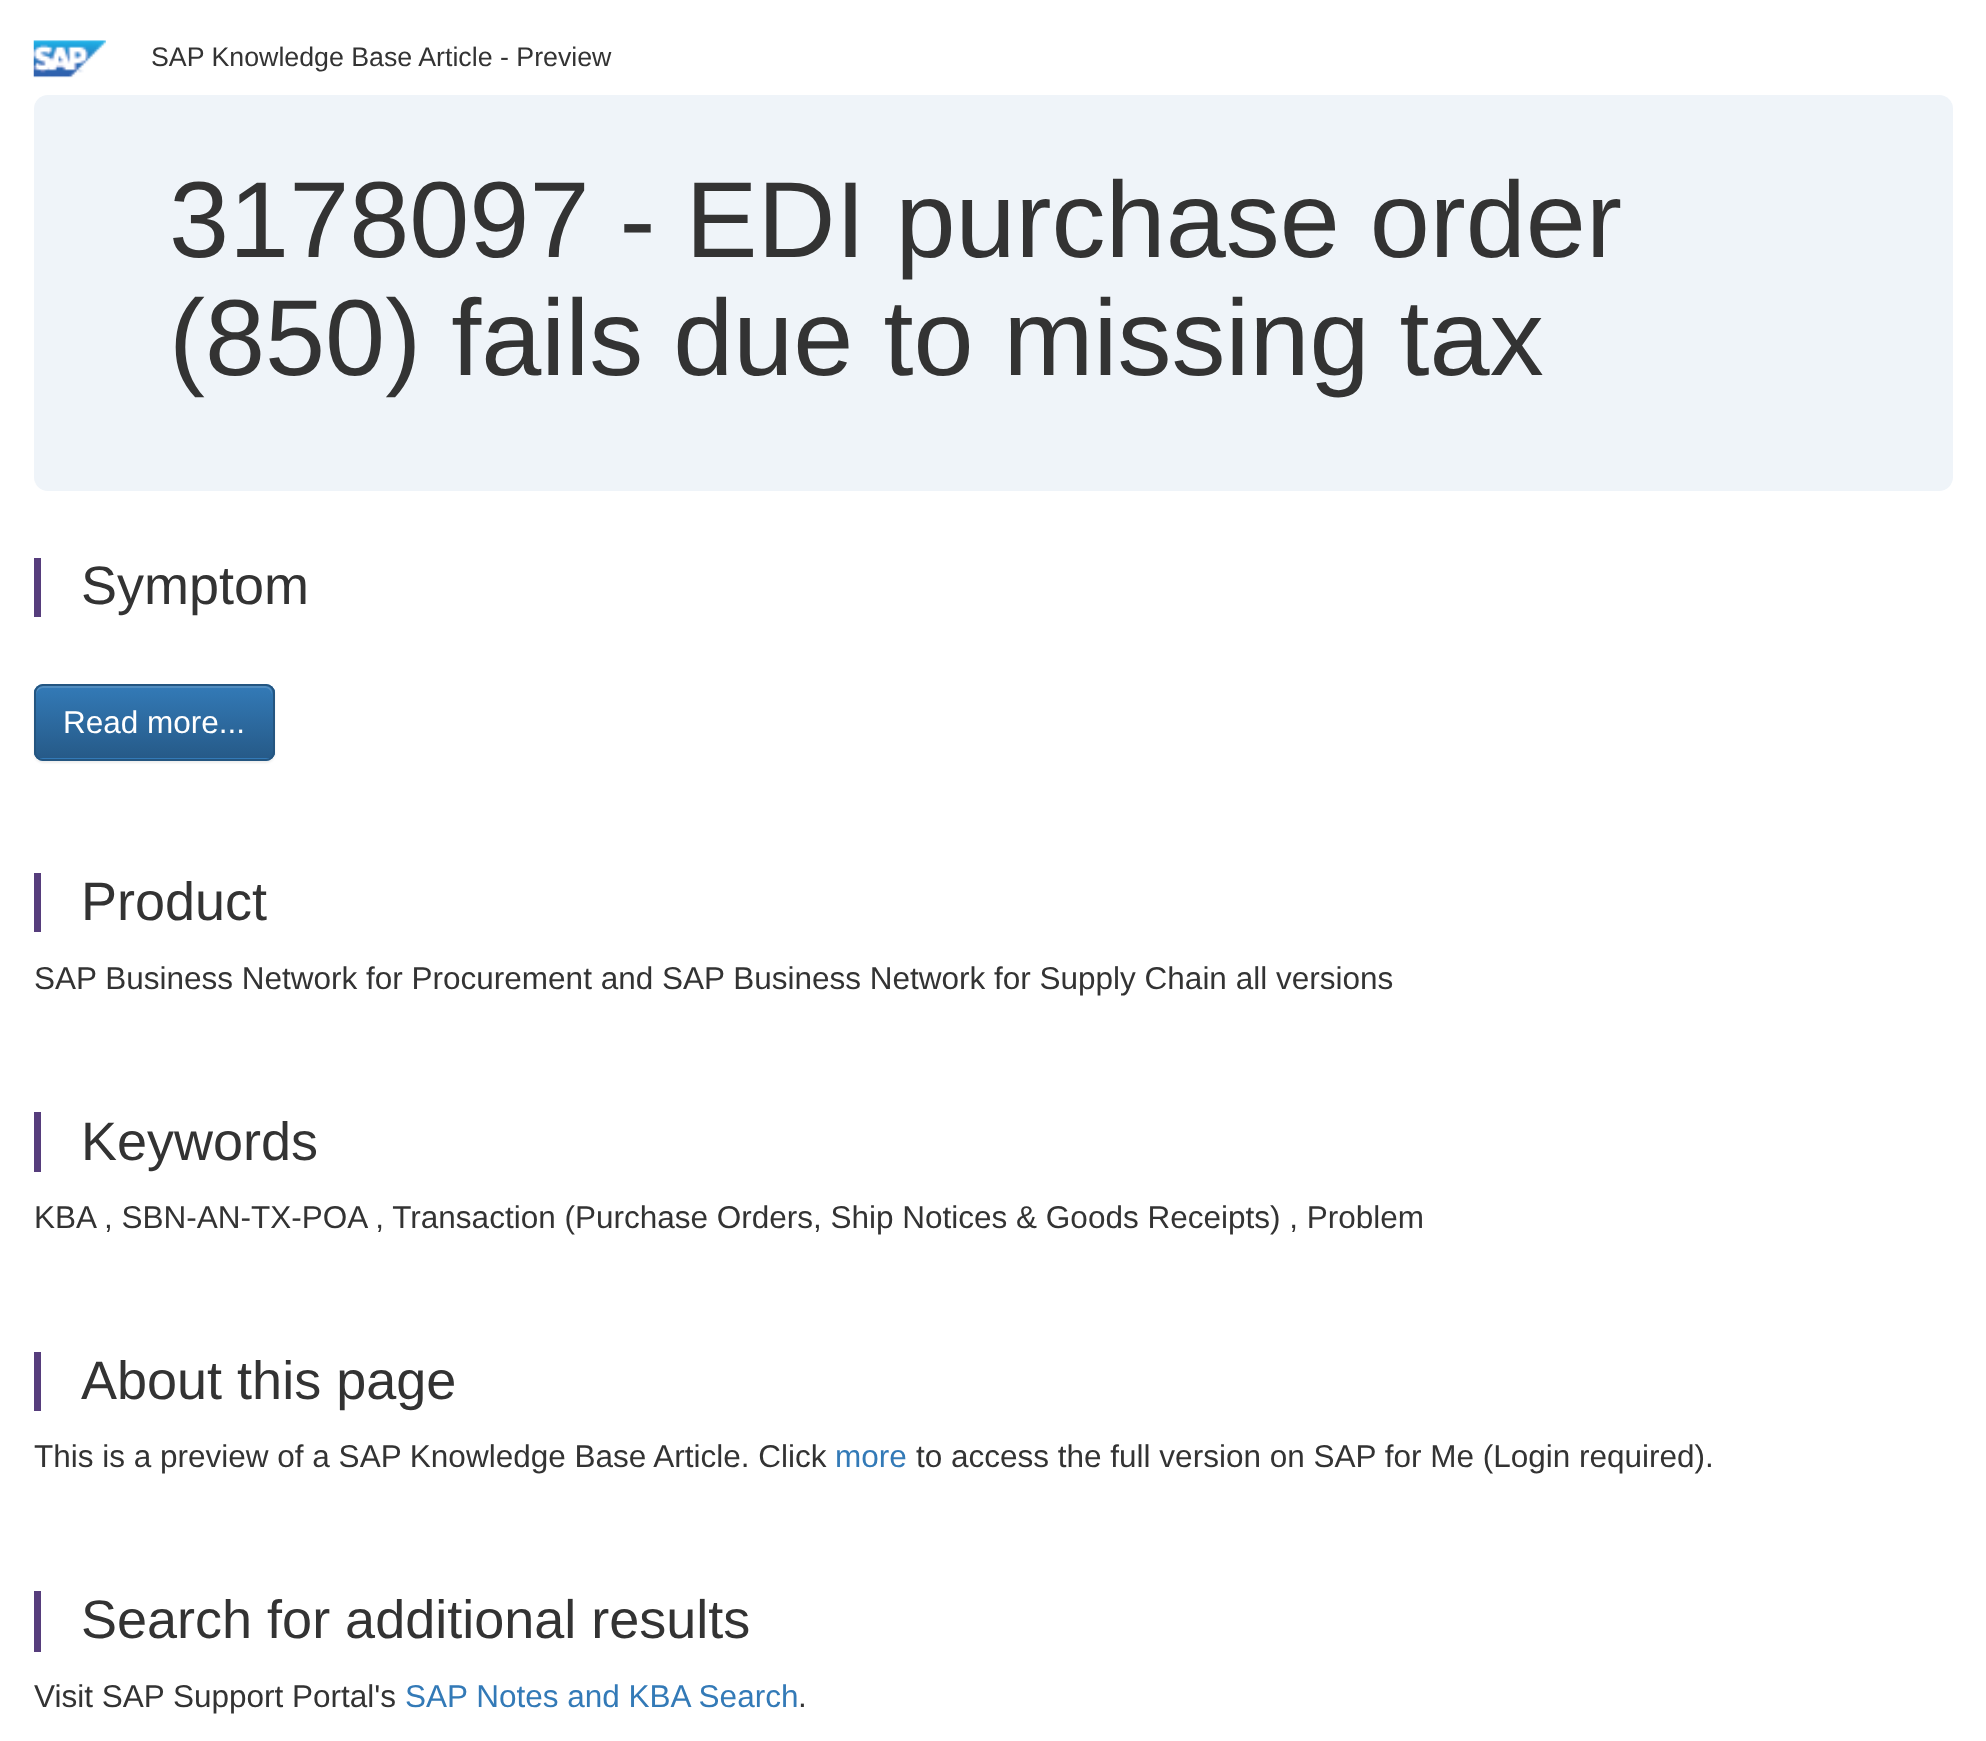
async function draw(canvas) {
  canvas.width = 1986
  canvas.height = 1741
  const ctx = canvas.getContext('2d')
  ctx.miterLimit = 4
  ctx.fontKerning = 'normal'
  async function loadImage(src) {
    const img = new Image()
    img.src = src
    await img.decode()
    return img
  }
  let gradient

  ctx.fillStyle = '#fff'
  ctx.fillRect(0, 0, 1986, 1741)
  ctx.drawImage(await loadImage('image0.png'), 33, 40, 73, 38)
  ctx.font = '26.75px Liberation Sans'
  ctx.fillStyle = '#333'
  ctx.fillText('SAP Knowledge Base Article - Preview', 151, 66)
  ctx.fillStyle = '#eff4f9'
  ctx.beginPath()
  ctx.roundRect(34, 95, 1919, 396, 14)
  ctx.fill()
  ctx.font = '108px Liberation Sans'
  ctx.fillStyle = '#333'
  ctx.fillText('3178097 - EDI purchase order', 169, 257)
  ctx.fillText('(850) fails due to missing tax', 169, 375)
  ctx.fillStyle = '#563d7c'
  ctx.fillRect(34, 558, 7, 59)
  ctx.font = '54px Liberation Sans'
  ctx.fillStyle = '#333'
  ctx.fillText('Symptom', 81, 604)
  ctx.fillStyle = '#00000012'
  ctx.filter = 'blur(1px)'
  ctx.beginPath()
  ctx.roundRect(34, 686, 241, 77, 9)
  ctx.fill()
  ctx.filter = 'none'
  ctx.fillStyle = '#337ab7'
  ctx.beginPath()
  ctx.roundRect(34, 684, 241, 77, 9)
  ctx.fill()
  ctx.save()
  ctx.beginPath()
  ctx.roundRect(34, 684, 241, 77, 9)
  ctx.clip()
  gradient = ctx.createLinearGradient(154, 686, 154, 758)
  gradient.addColorStop(0, '#337ab7')
  gradient.addColorStop(1, '#265a88')
  ctx.fillStyle = gradient
  ctx.fillRect(34, 686, 241, 72)
  ctx.restore()
  ctx.fillStyle = '#ffffff26'
  ctx.beginPath()
  ctx.moveTo(43, 688)
  ctx.lineTo(266, 688)
  ctx.bezierCurveTo(269, 688, 272, 692, 272, 695)
  ctx.lineTo(272, 693)
  ctx.bezierCurveTo(272, 689, 269, 686, 265, 686)
  ctx.lineTo(43, 686)
  ctx.bezierCurveTo(39, 686, 36, 689, 36, 693)
  ctx.lineTo(36, 695)
  ctx.bezierCurveTo(36, 692, 39, 688, 43, 688)
  ctx.closePath()
  ctx.fill()
  ctx.beginPath()
  ctx.roundRect(35, 685, 239, 75, 8)
  ctx.strokeStyle = '#245580'
  ctx.lineWidth = 2
  ctx.stroke()
  ctx.font = '31.5px Liberation Sans'
  ctx.fillStyle = '#fff'
  ctx.fillText('Read more...', 63, 733)
  ctx.fillStyle = '#563d7c'
  ctx.fillRect(34, 873, 7, 59)
  ctx.font = '54px Liberation Sans'
  ctx.fillStyle = '#333'
  ctx.fillText('Product', 81, 920)
  ctx.font = '31.5px Liberation Sans'
  ctx.fillText('SAP Business Network for Procurement and SAP Business Network for Supply Chain all versions', 34, 989)
  ctx.fillStyle = '#563d7c'
  ctx.fillRect(34, 1112, 7, 60)
  ctx.font = '54px Liberation Sans'
  ctx.fillStyle = '#333'
  ctx.fillText('Keywords', 81, 1160)
  ctx.font = '31.5px Liberation Sans'
  ctx.fillText('KBA , SBN-AN-TX-POA , Transaction (Purchase Orders, Ship Notices & Goods Receipts) , Problem', 34, 1228)
  ctx.fillStyle = '#563d7c'
  ctx.fillRect(34, 1352, 7, 59)
  ctx.font = '54px Liberation Sans'
  ctx.fillStyle = '#333'
  ctx.fillText('About this page', 81, 1399)
  ctx.font = '31.5px Liberation Sans'
  ctx.fillText('This is a preview of a SAP Knowledge Base Article. Click', 34, 1467)
  ctx.fillStyle = '#337ab7'
  ctx.fillText('more', 835, 1467)
  ctx.fillStyle = '#333'
  ctx.fillText('to access the full version on SAP for Me (Login required).', 916, 1467)
  ctx.fillStyle = '#563d7c'
  ctx.fillRect(34, 1591, 7, 61)
  ctx.font = '54px Liberation Sans'
  ctx.fillStyle = '#333'
  ctx.fillText('Search for additional results', 81, 1638)
  ctx.font = '31.5px Liberation Sans'
  ctx.fillText('Visit SAP Support Portal\'s', 34, 1707)
  ctx.fillStyle = '#337ab7'
  ctx.fillText('SAP Notes and KBA Search', 405, 1707)
  ctx.fillStyle = '#333'
  ctx.fillText('.', 798, 1707)
}

draw(document.querySelector('canvas'))
